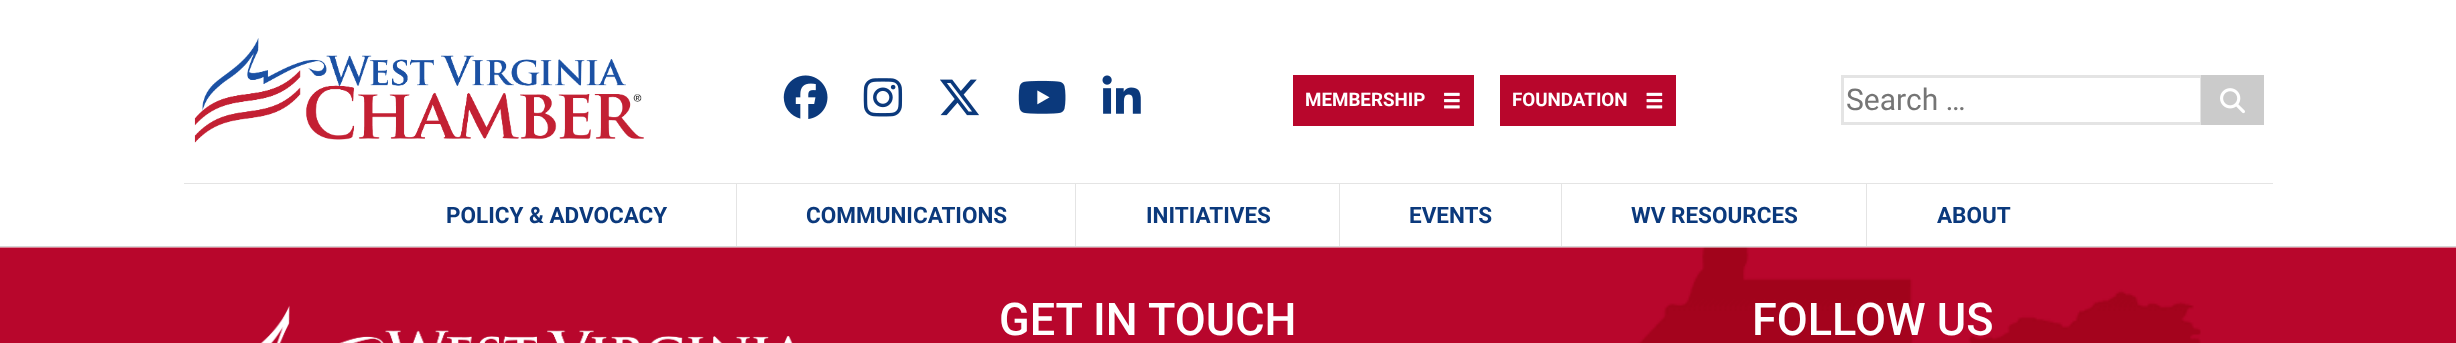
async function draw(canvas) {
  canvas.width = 2456
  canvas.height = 343
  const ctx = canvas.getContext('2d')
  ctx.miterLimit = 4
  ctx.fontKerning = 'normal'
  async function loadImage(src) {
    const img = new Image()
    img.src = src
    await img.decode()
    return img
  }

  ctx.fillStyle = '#fff'
  ctx.fillRect(0, 0, 2456, 343)
  ctx.fillStyle = '#d6d6d6'
  ctx.fillRect(0, 246, 2456, 1)
  ctx.fillStyle = '#e4e4e4'
  ctx.fillRect(184, 183, 2089, 1)
  ctx.drawImage(await loadImage('image0.png'), 194, 38, 450, 105)
  ctx.drawImage(await loadImage('image1.png'), 783, 75, 45, 44)
  ctx.drawImage(await loadImage('image2.png'), 863, 78, 40, 39)
  ctx.drawImage(await loadImage('image3.png'), 940, 79, 39, 37)
  ctx.drawImage(await loadImage('image4.png'), 1018, 80, 48, 34)
  ctx.drawImage(await loadImage('image5.png'), 1102, 75, 39, 39)
  ctx.fillStyle = '#b8062c'
  ctx.fillRect(1293, 75, 181, 51)
  ctx.font = 'bold 18.75px Roboto'
  ctx.fillStyle = '#fff'
  ctx.fillText('MEMBERSHIP', 1305, 106)
  ctx.drawImage(await loadImage('image6.png'), 1444, 92, 16, 17)
  ctx.fillStyle = '#b8062c'
  ctx.fillRect(1500, 75, 176, 51)
  ctx.fillStyle = '#fff'
  ctx.fillText('FOUNDATION', 1512, 106)
  ctx.drawImage(await loadImage('image7.png'), 1646, 92, 17, 17)
  ctx.strokeStyle = '#e4e4e4'
  ctx.lineWidth = 3
  ctx.strokeRect(1842.5, 76.5, 359, 47)
  ctx.font = '30px Roboto'
  ctx.fillStyle = '#757575'
  ctx.fillText('Search …', 1846, 110)
  ctx.fillStyle = '#cbcbcb'
  ctx.fillRect(2201, 75, 63, 50)
  ctx.drawImage(await loadImage('image8.png'), 2220, 88, 25, 26)
  ctx.fillStyle = '#e4e4e4'
  ctx.fillRect(736, 184, 1, 62)
  ctx.font = 'bold 22.5px Roboto'
  ctx.fillStyle = '#0b397c'
  ctx.fillText('POLICY & ADVOCACY', 446, 223)
  ctx.fillStyle = '#e4e4e4'
  ctx.fillRect(1075, 184, 1, 62)
  ctx.fillStyle = '#0b397c'
  ctx.fillText('COMMUNICATIONS', 806, 223)
  ctx.fillStyle = '#e4e4e4'
  ctx.fillRect(1339, 184, 1, 62)
  ctx.fillStyle = '#0b397c'
  ctx.fillText('INITIATIVES', 1146, 223)
  ctx.fillStyle = '#e4e4e4'
  ctx.fillRect(1561, 184, 1, 62)
  ctx.fillStyle = '#0b397c'
  ctx.fillText('EVENTS', 1409, 223)
  ctx.fillStyle = '#e4e4e4'
  ctx.fillRect(1866, 184, 1, 62)
  ctx.fillStyle = '#0b397c'
  ctx.fillText('WV RESOURCES', 1631, 223)
  ctx.fillText('ABOUT', 1937, 223)
  ctx.drawImage(await loadImage('image9.png'), 0, 247, 2456, 96)
  ctx.drawImage(await loadImage('image10.png'), 260, 305, 533, 38)
  ctx.font = '500 45px Roboto'
  ctx.fillStyle = '#fff'
  ctx.fillText('GET IN TOUCH', 999, 335)
  ctx.fillText('FOLLOW US', 1752, 335)
}

draw(document.querySelector('canvas'))
